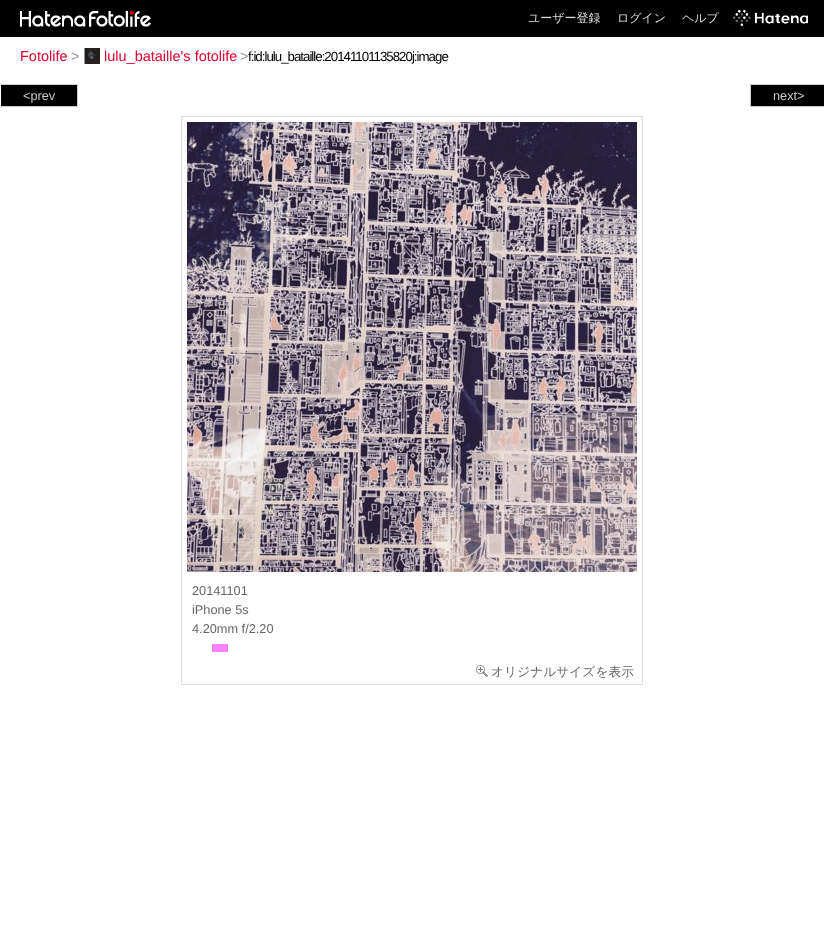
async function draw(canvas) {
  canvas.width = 824
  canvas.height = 926
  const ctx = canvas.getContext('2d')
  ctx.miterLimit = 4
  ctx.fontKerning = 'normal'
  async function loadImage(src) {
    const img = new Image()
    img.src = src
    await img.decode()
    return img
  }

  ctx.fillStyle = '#fff'
  ctx.fillRect(0, 0, 824, 926)
  ctx.fillStyle = '#000'
  ctx.fillRect(0, 0, 824, 37)
  ctx.drawImage(await loadImage('image0.png'), 20, 11, 66, 16)
  ctx.drawImage(await loadImage('image1.png'), 89, 11, 62, 16)
  ctx.font = '500 12px WenQuanYi Zen Hei'
  ctx.fillStyle = '#ddd'
  ctx.fillText('ユーザー登録', 528, 22)
  ctx.fillText('ログイン', 617, 22)
  ctx.fillText('ヘルプ', 682, 22)
  ctx.drawImage(await loadImage('image2.png'), 733, 10, 75, 16)
  ctx.font = '14.5px Liberation Sans'
  ctx.fillStyle = '#de002f'
  ctx.fillText('Fotolife', 20, 61)
  ctx.fillStyle = '#999'
  ctx.fillText('>', 71, 61)
  ctx.drawImage(await loadImage('image3.png'), 84, 48, 16, 16)
  ctx.fillStyle = '#de002f'
  ctx.fillText('lulu_bataille\'s fotolife', 104, 61)
  ctx.fillStyle = '#999'
  ctx.fillText('>', 240, 61)
  ctx.letterSpacing = '-1px'
  ctx.font = '13.3px Liberation Sans'
  ctx.fillStyle = '#000'
  ctx.fillText('f:id:lulu_bataille:20141101135820j:image', 248, 61)
  ctx.fillRect(1, 85, 76, 21)
  ctx.fillStyle = '#ccc'
  ctx.fillRect(1, 84, 77, 1)
  ctx.fillRect(77, 84, 1, 23)
  ctx.fillRect(1, 106, 77, 1)
  ctx.letterSpacing = '0px'
  ctx.font = '12.75px Liberation Sans'
  ctx.fillText('<prev', 23, 100)
  ctx.fillStyle = '#000'
  ctx.fillRect(751, 85, 73, 21)
  ctx.fillStyle = '#ccc'
  ctx.fillRect(750, 84, 74, 1)
  ctx.fillRect(750, 106, 74, 1)
  ctx.fillRect(750, 84, 1, 23)
  ctx.fillText('next>', 773, 100)
  ctx.strokeStyle = '#dedede'
  ctx.strokeRect(181.5, 116.5, 461, 568)
  ctx.drawImage(await loadImage('image4.png'), 187, 122, 450, 450)
  ctx.fillStyle = '#666'
  ctx.fillText('20141101', 192, 595)
  ctx.fillText('iPhone 5s', 192, 614)
  ctx.fillText('4.20mm f/2.20', 192, 633)
  ctx.fillStyle = '#ff80ff'
  ctx.fillRect(212, 644, 16, 8)
  ctx.drawImage(await loadImage('image5.png'), 476, 665, 12, 12)
  ctx.font = '500 12.75px WenQuanYi Zen Hei'
  ctx.fillStyle = '#666'
  ctx.fillText('オリジナルサイズを表示', 491, 676)
}

draw(document.querySelector('canvas'))
